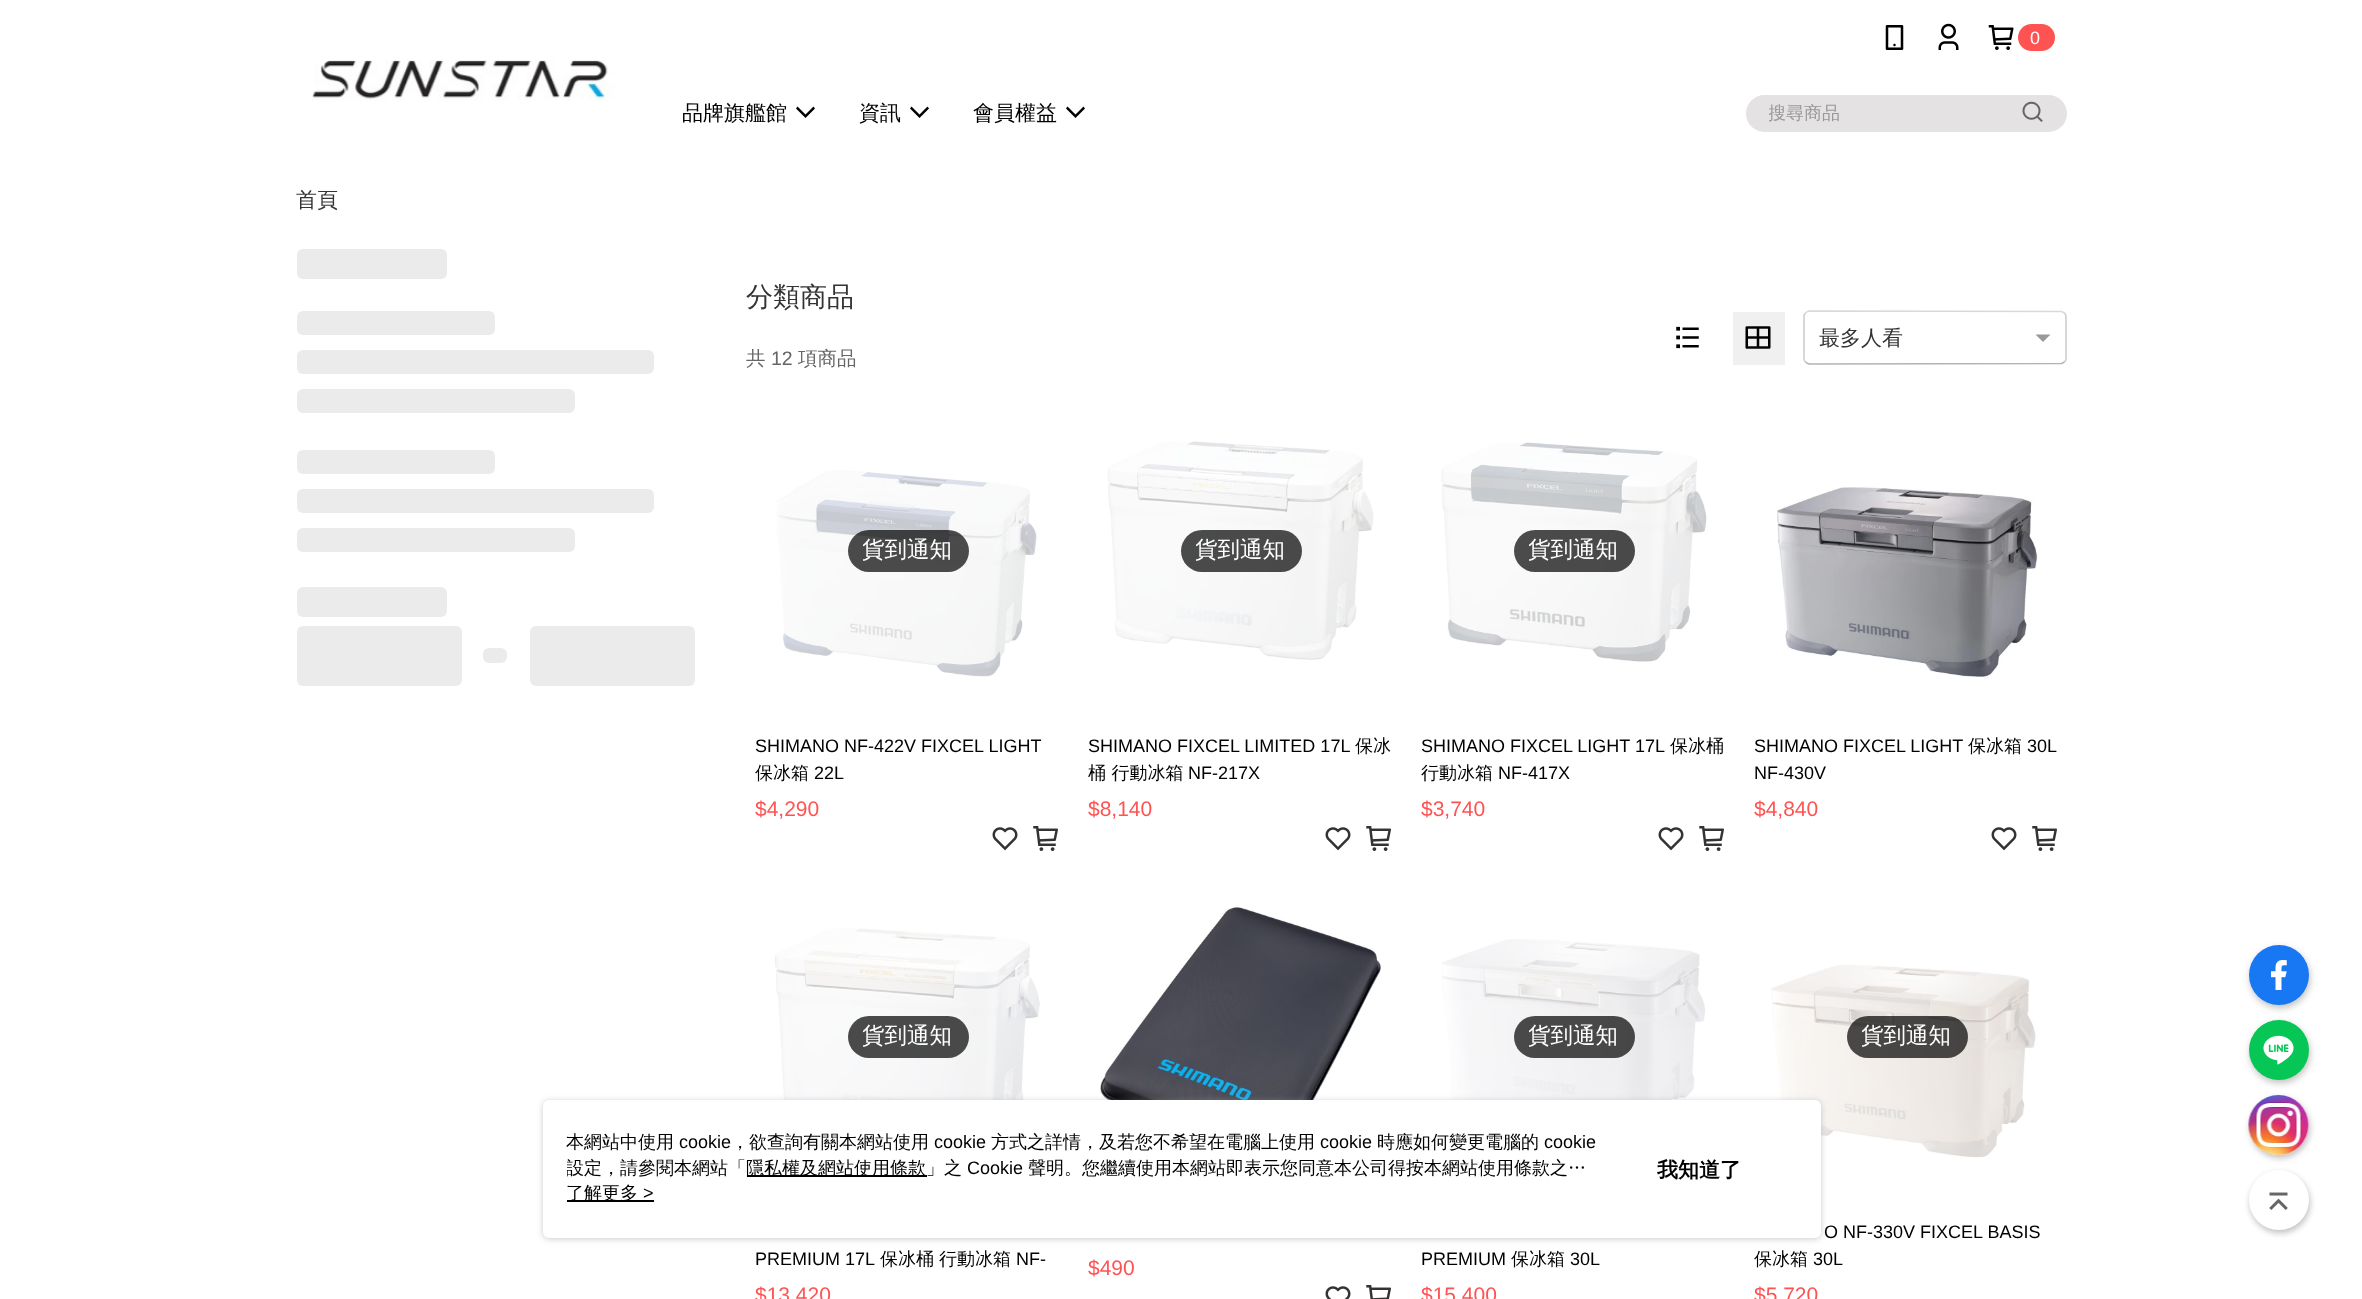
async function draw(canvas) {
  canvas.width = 2362
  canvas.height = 1299
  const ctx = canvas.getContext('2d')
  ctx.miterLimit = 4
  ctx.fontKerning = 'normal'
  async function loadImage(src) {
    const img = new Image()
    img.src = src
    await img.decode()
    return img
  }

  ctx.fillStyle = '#fff'
  ctx.fillRect(0, 0, 2362, 1299)
  ctx.drawImage(await loadImage('image0.png'), 312, 60, 303, 41)
  ctx.drawImage(await loadImage('image1.png'), 1885, 25, 19, 25)
  ctx.drawImage(await loadImage('image2.png'), 1938, 23, 21, 27)
  ctx.drawImage(await loadImage('image3.png'), 1988, 25, 26, 25)
  ctx.fillStyle = '#ff5353'
  ctx.beginPath()
  ctx.roundRect(2018, 24, 37, 27, 13.5)
  ctx.fill()
  ctx.font = '18px Liberation Sans'
  ctx.fillStyle = '#fff'
  ctx.fillText('0', 2030, 44)
  ctx.font = '500 21px WenQuanYi Zen Hei'
  ctx.fillStyle = '#000'
  ctx.fillText('品牌旗艦館', 682, 120)
  ctx.beginPath()
  ctx.moveTo(797.5, 106.5)
  ctx.lineTo(796, 108.5)
  ctx.lineTo(805.5, 118)
  ctx.lineTo(815, 108.5)
  ctx.lineTo(813.5, 106.5)
  ctx.lineTo(805.5, 114.5)
  ctx.closePath()
  ctx.fill()
  ctx.fillText('資訊', 859, 120)
  ctx.beginPath()
  ctx.moveTo(911.5, 106.5)
  ctx.lineTo(910, 108.5)
  ctx.lineTo(919.5, 118)
  ctx.lineTo(929, 108.5)
  ctx.lineTo(927.5, 106.5)
  ctx.lineTo(919.5, 114.5)
  ctx.closePath()
  ctx.fill()
  ctx.fillText('會員權益', 973, 120)
  ctx.beginPath()
  ctx.moveTo(1067.5, 106.5)
  ctx.lineTo(1066, 108.5)
  ctx.lineTo(1075.5, 118)
  ctx.lineTo(1085, 108.5)
  ctx.lineTo(1083.5, 106.5)
  ctx.lineTo(1075.5, 114.5)
  ctx.closePath()
  ctx.fill()
  ctx.fillStyle = '#e4e2e2'
  ctx.beginPath()
  ctx.roundRect(1746, 95, 321, 37, 18.5)
  ctx.fill()
  ctx.save()
  ctx.beginPath()
  ctx.rect(1769, 101, 228, 25)
  ctx.clip()
  ctx.font = '500 18px WenQuanYi Zen Hei'
  ctx.fillStyle = '#999'
  ctx.fillText('搜尋商品', 1768, 119)
  ctx.restore()
  ctx.drawImage(await loadImage('image4.png'), 2022, 101, 21, 21)
  ctx.fillStyle = '#00000040'
  ctx.filter = 'blur(3.5px)'
  ctx.beginPath()
  ctx.roundRect(2250, 948, 60, 60, 30)
  ctx.fill()
  ctx.filter = 'none'
  ctx.fillStyle = '#1877f2'
  ctx.beginPath()
  ctx.arc(2279, 975, 30, 0, 2 * Math.PI)
  ctx.fill()
  ctx.drawImage(await loadImage('image5.png'), 2271, 960, 16, 30)
  ctx.fillStyle = '#00000040'
  ctx.filter = 'blur(3.5px)'
  ctx.beginPath()
  ctx.roundRect(2250, 1023, 60, 60, 30)
  ctx.fill()
  ctx.filter = 'none'
  ctx.fillStyle = '#06c755'
  ctx.beginPath()
  ctx.arc(2279, 1050, 30, 0, 2 * Math.PI)
  ctx.fill()
  ctx.drawImage(await loadImage('image6.png'), 2263, 1035, 31, 30)
  ctx.fillStyle = '#00000040'
  ctx.filter = 'blur(3px)'
  ctx.beginPath()
  ctx.roundRect(2250, 1098, 60, 60, 30)
  ctx.fill()
  ctx.filter = 'none'
  ctx.fillStyle = '#fff'
  ctx.beginPath()
  ctx.arc(2279, 1125, 30, 0, 2 * Math.PI)
  ctx.fill()
  ctx.drawImage(await loadImage('image7.png'), 2248, 1095, 61, 60)
  ctx.fillStyle = '#00000040'
  ctx.filter = 'blur(3px)'
  ctx.beginPath()
  ctx.roundRect(2250, 1173, 60, 60, 30)
  ctx.fill()
  ctx.filter = 'none'
  ctx.fillStyle = '#fff'
  ctx.beginPath()
  ctx.arc(2279, 1200, 30, 0, 2 * Math.PI)
  ctx.fill()
  ctx.drawImage(await loadImage('image8.png'), 2269, 1192, 19, 18)
  ctx.fillStyle = '#333'
  ctx.fillText('首頁', 296, 207)
  ctx.fillStyle = '#ebebeb'
  ctx.beginPath()
  ctx.roundRect(297, 249, 150, 30, 6)
  ctx.fill()
  ctx.beginPath()
  ctx.roundRect(297, 311, 198, 24, 6)
  ctx.fill()
  ctx.beginPath()
  ctx.roundRect(297, 350, 357, 24, 6)
  ctx.fill()
  ctx.beginPath()
  ctx.roundRect(297, 389, 278, 24, 6)
  ctx.fill()
  ctx.beginPath()
  ctx.roundRect(297, 450, 198, 24, 6)
  ctx.fill()
  ctx.beginPath()
  ctx.roundRect(297, 489, 357, 24, 6)
  ctx.fill()
  ctx.beginPath()
  ctx.roundRect(297, 528, 278, 24, 6)
  ctx.fill()
  ctx.beginPath()
  ctx.roundRect(297, 587, 150, 30, 6)
  ctx.fill()
  ctx.beginPath()
  ctx.roundRect(297, 626, 165, 60, 6)
  ctx.fill()
  ctx.beginPath()
  ctx.roundRect(483, 648, 24, 15, 6)
  ctx.fill()
  ctx.beginPath()
  ctx.roundRect(530, 626, 165, 60, 6)
  ctx.fill()
  ctx.font = '500 27px WenQuanYi Zen Hei'
  ctx.fillStyle = '#333'
  ctx.fillText('分類商品', 746, 306)
  ctx.drawImage(await loadImage('image9.png'), 1676, 326, 23, 23)
  ctx.fillStyle = '#f0f0f0'
  ctx.fillRect(1733, 312, 52, 53)
  ctx.drawImage(await loadImage('image10.png'), 1745, 326, 26, 23)
  ctx.beginPath()
  ctx.moveTo(1805.5, 313)
  ctx.bezierCurveTo(1806.5, 312, 1807.5, 311.5, 1809, 311)
  ctx.lineTo(2061.5, 311.5)
  ctx.lineTo(2064.5, 313)
  ctx.strokeStyle = '#d9d9d9'
  ctx.lineWidth = 1.5
  ctx.stroke()
  ctx.beginPath()
  ctx.moveTo(2064.5, 313)
  ctx.bezierCurveTo(2065.5, 314, 2066, 315, 2066, 316.5)
  ctx.lineTo(2066, 358.5)
  ctx.bezierCurveTo(2066, 360, 2065.5, 361, 2064.5, 362)
  ctx.strokeStyle = '#ccc'
  ctx.stroke()
  ctx.beginPath()
  ctx.moveTo(2064.5, 362)
  ctx.lineTo(2061.5, 363.5)
  ctx.lineTo(1809, 364)
  ctx.bezierCurveTo(1807.5, 363.5, 1806.5, 363, 1805.5, 362)
  ctx.strokeStyle = '#b3b3b3'
  ctx.stroke()
  ctx.beginPath()
  ctx.moveTo(1805.5, 362)
  ctx.bezierCurveTo(1804.5, 361, 1804, 360, 1804, 358.5)
  ctx.lineTo(1804, 316.5)
  ctx.bezierCurveTo(1804, 315, 1804.5, 314, 1805.5, 313)
  ctx.strokeStyle = '#ccc'
  ctx.stroke()
  ctx.font = '500 21px WenQuanYi Zen Hei'
  ctx.fillStyle = '#333'
  ctx.fillText('最多人看', 1819, 345)
  ctx.fillStyle = '#999'
  ctx.beginPath()
  ctx.moveTo(2035.5, 334.5)
  ctx.lineTo(2050.5, 334.5)
  ctx.lineTo(2043, 342)
  ctx.closePath()
  ctx.fill()
  ctx.font = '500 19.5px WenQuanYi Zen Hei'
  ctx.fillStyle = '#666'
  ctx.fillText('共', 746, 365)
  ctx.font = '19.5px Liberation Sans'
  ctx.fillText('12', 771, 365)
  ctx.font = '500 19.5px WenQuanYi Zen Hei'
  ctx.fillText('項商品', 798, 365)
  ctx.drawImage(await loadImage('image11.png'), 776, 470, 262, 208)
  ctx.fillStyle = '#000000b3'
  ctx.beginPath()
  ctx.roundRect(848, 530, 121, 42, 21)
  ctx.fill()
  ctx.save()
  ctx.beginPath()
  ctx.rect(863, 537, 90, 29)
  ctx.clip()
  ctx.font = '500 22.5px WenQuanYi Zen Hei'
  ctx.fillStyle = '#fff'
  ctx.fillText('貨到通知', 862, 557)
  ctx.restore()
  ctx.font = '18px Liberation Sans'
  ctx.fillStyle = '#000'
  ctx.fillText('SHIMANO NF-422V FIXCEL LIGHT', 755, 752)
  ctx.font = '500 18px WenQuanYi Zen Hei'
  ctx.fillText('保冰箱', 755, 779)
  ctx.font = '18px Liberation Sans'
  ctx.fillText('22L', 814, 779)
  ctx.font = '21px Liberation Sans'
  ctx.fillStyle = '#ff5353'
  ctx.fillText('$4,290', 755, 816)
  ctx.drawImage(await loadImage('image12.png'), 992, 827, 26, 24)
  ctx.drawImage(await loadImage('image13.png'), 1033, 826, 25, 25)
  ctx.drawImage(await loadImage('image14.png'), 1107, 441, 267, 219)
  ctx.fillStyle = '#000000b3'
  ctx.beginPath()
  ctx.roundRect(1181, 530, 121, 42, 21)
  ctx.fill()
  ctx.save()
  ctx.beginPath()
  ctx.rect(1196, 537, 90, 29)
  ctx.clip()
  ctx.font = '500 22.5px WenQuanYi Zen Hei'
  ctx.fillStyle = '#fff'
  ctx.fillText('貨到通知', 1195, 557)
  ctx.restore()
  ctx.font = '18px Liberation Sans'
  ctx.fillStyle = '#000'
  ctx.fillText('SHIMANO FIXCEL LIMITED 17L', 1088, 752)
  ctx.font = '500 18px WenQuanYi Zen Hei'
  ctx.fillText('保冰', 1355, 752)
  ctx.fillText('桶 行動冰箱', 1088, 779)
  ctx.font = '18px Liberation Sans'
  ctx.fillText('NF-217X', 1188, 779)
  ctx.font = '21px Liberation Sans'
  ctx.fillStyle = '#ff5353'
  ctx.fillText('$8,140', 1088, 816)
  ctx.drawImage(await loadImage('image12.png'), 1325, 827, 26, 24)
  ctx.drawImage(await loadImage('image13.png'), 1366, 826, 25, 25)
  ctx.drawImage(await loadImage('image15.png'), 1441, 442, 266, 220)
  ctx.fillStyle = '#000000b3'
  ctx.beginPath()
  ctx.roundRect(1514, 530, 121, 42, 21)
  ctx.fill()
  ctx.save()
  ctx.beginPath()
  ctx.rect(1529, 537, 90, 29)
  ctx.clip()
  ctx.font = '500 22.5px WenQuanYi Zen Hei'
  ctx.fillStyle = '#fff'
  ctx.fillText('貨到通知', 1528, 557)
  ctx.restore()
  ctx.font = '18px Liberation Sans'
  ctx.fillStyle = '#000'
  ctx.fillText('SHIMANO FIXCEL LIGHT 17L', 1421, 752)
  ctx.font = '500 18px WenQuanYi Zen Hei'
  ctx.fillText('保冰桶', 1670, 752)
  ctx.fillText('行動冰箱', 1421, 779)
  ctx.font = '18px Liberation Sans'
  ctx.fillText('NF-417X', 1498, 779)
  ctx.font = '21px Liberation Sans'
  ctx.fillStyle = '#ff5353'
  ctx.fillText('$3,740', 1421, 816)
  ctx.drawImage(await loadImage('image12.png'), 1658, 827, 26, 24)
  ctx.drawImage(await loadImage('image13.png'), 1699, 826, 25, 25)
  ctx.drawImage(await loadImage('image16.png'), 1777, 487, 261, 190)
  ctx.font = '18px Liberation Sans'
  ctx.fillStyle = '#000'
  ctx.fillText('SHIMANO FIXCEL LIGHT', 1754, 752)
  ctx.font = '500 18px WenQuanYi Zen Hei'
  ctx.fillText('保冰箱', 1968, 752)
  ctx.font = '18px Liberation Sans'
  ctx.fillText('30L', 2027, 752)
  ctx.fillText('NF-430V', 1754, 779)
  ctx.font = '21px Liberation Sans'
  ctx.fillStyle = '#ff5353'
  ctx.fillText('$4,840', 1754, 816)
  ctx.drawImage(await loadImage('image12.png'), 1991, 827, 26, 24)
  ctx.drawImage(await loadImage('image13.png'), 2032, 826, 25, 25)
  ctx.drawImage(await loadImage('image17.png'), 774, 928, 266, 172)
  ctx.fillStyle = '#000000b3'
  ctx.beginPath()
  ctx.roundRect(848, 1016, 121, 42, 21)
  ctx.fill()
  ctx.save()
  ctx.beginPath()
  ctx.rect(863, 1023, 90, 29)
  ctx.clip()
  ctx.font = '500 22.5px WenQuanYi Zen Hei'
  ctx.fillStyle = '#fff'
  ctx.fillText('貨到通知', 862, 1043)
  ctx.restore()
  ctx.font = '18px Liberation Sans'
  ctx.fillStyle = '#000'
  ctx.fillText('PREMIUM 17L', 755, 1265)
  ctx.font = '500 18px WenQuanYi Zen Hei'
  ctx.fillText('保冰桶', 880, 1265)
  ctx.fillText('行動冰箱', 939, 1265)
  ctx.font = '18px Liberation Sans'
  ctx.fillText('NF-', 1016, 1265)
  ctx.font = '21px Liberation Sans'
  ctx.fillStyle = '#ff5353'
  ctx.fillText('$13,420', 755, 1302)
  ctx.drawImage(await loadImage('image18.png'), 1100, 907, 281, 193)
  ctx.fillText('$490', 1088, 1275)
  ctx.drawImage(await loadImage('image19.png'), 1325, 1286, 26, 13)
  ctx.drawImage(await loadImage('image20.png'), 1366, 1285, 25, 14)
  ctx.drawImage(await loadImage('image21.png'), 1441, 939, 265, 161)
  ctx.fillStyle = '#000000b3'
  ctx.beginPath()
  ctx.roundRect(1514, 1016, 121, 42, 21)
  ctx.fill()
  ctx.save()
  ctx.beginPath()
  ctx.rect(1529, 1023, 90, 29)
  ctx.clip()
  ctx.font = '500 22.5px WenQuanYi Zen Hei'
  ctx.fillStyle = '#fff'
  ctx.fillText('貨到通知', 1528, 1043)
  ctx.restore()
  ctx.font = '18px Liberation Sans'
  ctx.fillStyle = '#000'
  ctx.fillText('PREMIUM', 1421, 1265)
  ctx.font = '500 18px WenQuanYi Zen Hei'
  ctx.fillText('保冰箱', 1511, 1265)
  ctx.font = '18px Liberation Sans'
  ctx.fillText('30L', 1570, 1265)
  ctx.font = '21px Liberation Sans'
  ctx.fillStyle = '#ff5353'
  ctx.fillText('$15,400', 1421, 1302)
  ctx.drawImage(await loadImage('image22.png'), 1770, 964, 266, 194)
  ctx.fillStyle = '#000000b3'
  ctx.beginPath()
  ctx.roundRect(1847, 1016, 121, 42, 21)
  ctx.fill()
  ctx.save()
  ctx.beginPath()
  ctx.rect(1862, 1023, 90, 29)
  ctx.clip()
  ctx.font = '500 22.5px WenQuanYi Zen Hei'
  ctx.fillStyle = '#fff'
  ctx.fillText('貨到通知', 1861, 1043)
  ctx.restore()
  ctx.font = '18px Liberation Sans'
  ctx.fillStyle = '#000'
  ctx.fillText('O NF-330V FIXCEL BASIS', 1824, 1238)
  ctx.font = '500 18px WenQuanYi Zen Hei'
  ctx.fillText('保冰箱', 1754, 1265)
  ctx.font = '18px Liberation Sans'
  ctx.fillText('30L', 1813, 1265)
  ctx.font = '21px Liberation Sans'
  ctx.fillStyle = '#ff5353'
  ctx.fillText('$5,720', 1754, 1302)
  ctx.fillStyle = '#97979780'
  ctx.filter = 'blur(3px)'
  ctx.beginPath()
  ctx.roundRect(543, 1101, 1278, 138, 6)
  ctx.fill()
  ctx.filter = 'none'
  ctx.fillStyle = '#fff'
  ctx.beginPath()
  ctx.roundRect(543, 1100, 1278, 138, 6)
  ctx.fill()
  ctx.font = '500 18px WenQuanYi Zen Hei'
  ctx.fillStyle = '#000'
  ctx.fillText('本網站中使用', 566, 1148)
  ctx.font = '18px Liberation Sans'
  ctx.fillText('cookie', 679, 1148)
  ctx.font = '500 18px WenQuanYi Zen Hei'
  ctx.fillText('，欲查詢有關本網站使用', 731, 1148)
  ctx.font = '18px Liberation Sans'
  ctx.fillText('cookie', 934, 1148)
  ctx.font = '500 18px WenQuanYi Zen Hei'
  ctx.fillText('方式之詳情，及若您不希望在電腦上使用', 991, 1148)
  ctx.font = '18px Liberation Sans'
  ctx.fillText('cookie', 1320, 1148)
  ctx.font = '500 18px WenQuanYi Zen Hei'
  ctx.fillText('時應如何變更電腦的', 1377, 1148)
  ctx.font = '18px Liberation Sans'
  ctx.fillText('cookie', 1544, 1148)
  ctx.save()
  ctx.beginPath()
  ctx.rect(567, 1130, 1035, 51)
  ctx.clip()
  ctx.font = '500 18px WenQuanYi Zen Hei'
  ctx.fillText('設定，請參閱本網站「', 566, 1174)
  ctx.restore()
  ctx.fillRect(747, 1175, 180, 2)
  ctx.font = '500 18px WenQuanYi Zen Hei'
  ctx.fillText('隱私權及網站使用條款」之', 746, 1174)
  ctx.font = '18px Liberation Sans'
  ctx.fillText('Cookie', 967, 1174)
  ctx.font = '500 18px WenQuanYi Zen Hei'
  ctx.fillText('聲明。您繼續使用本網站即表示您同意本公司得按本網站使用條款之…', 1028, 1174)
  ctx.fillRect(567, 1200, 87, 2)
  ctx.fillText('了解更多', 566, 1199)
  ctx.font = '18px Liberation Sans'
  ctx.fillText('>', 643, 1199)
  ctx.font = 'bold 21px WenQuanYi Zen Hei'
  ctx.fillText('我知道了', 1657, 1177)
}

draw(document.querySelector('canvas'))
